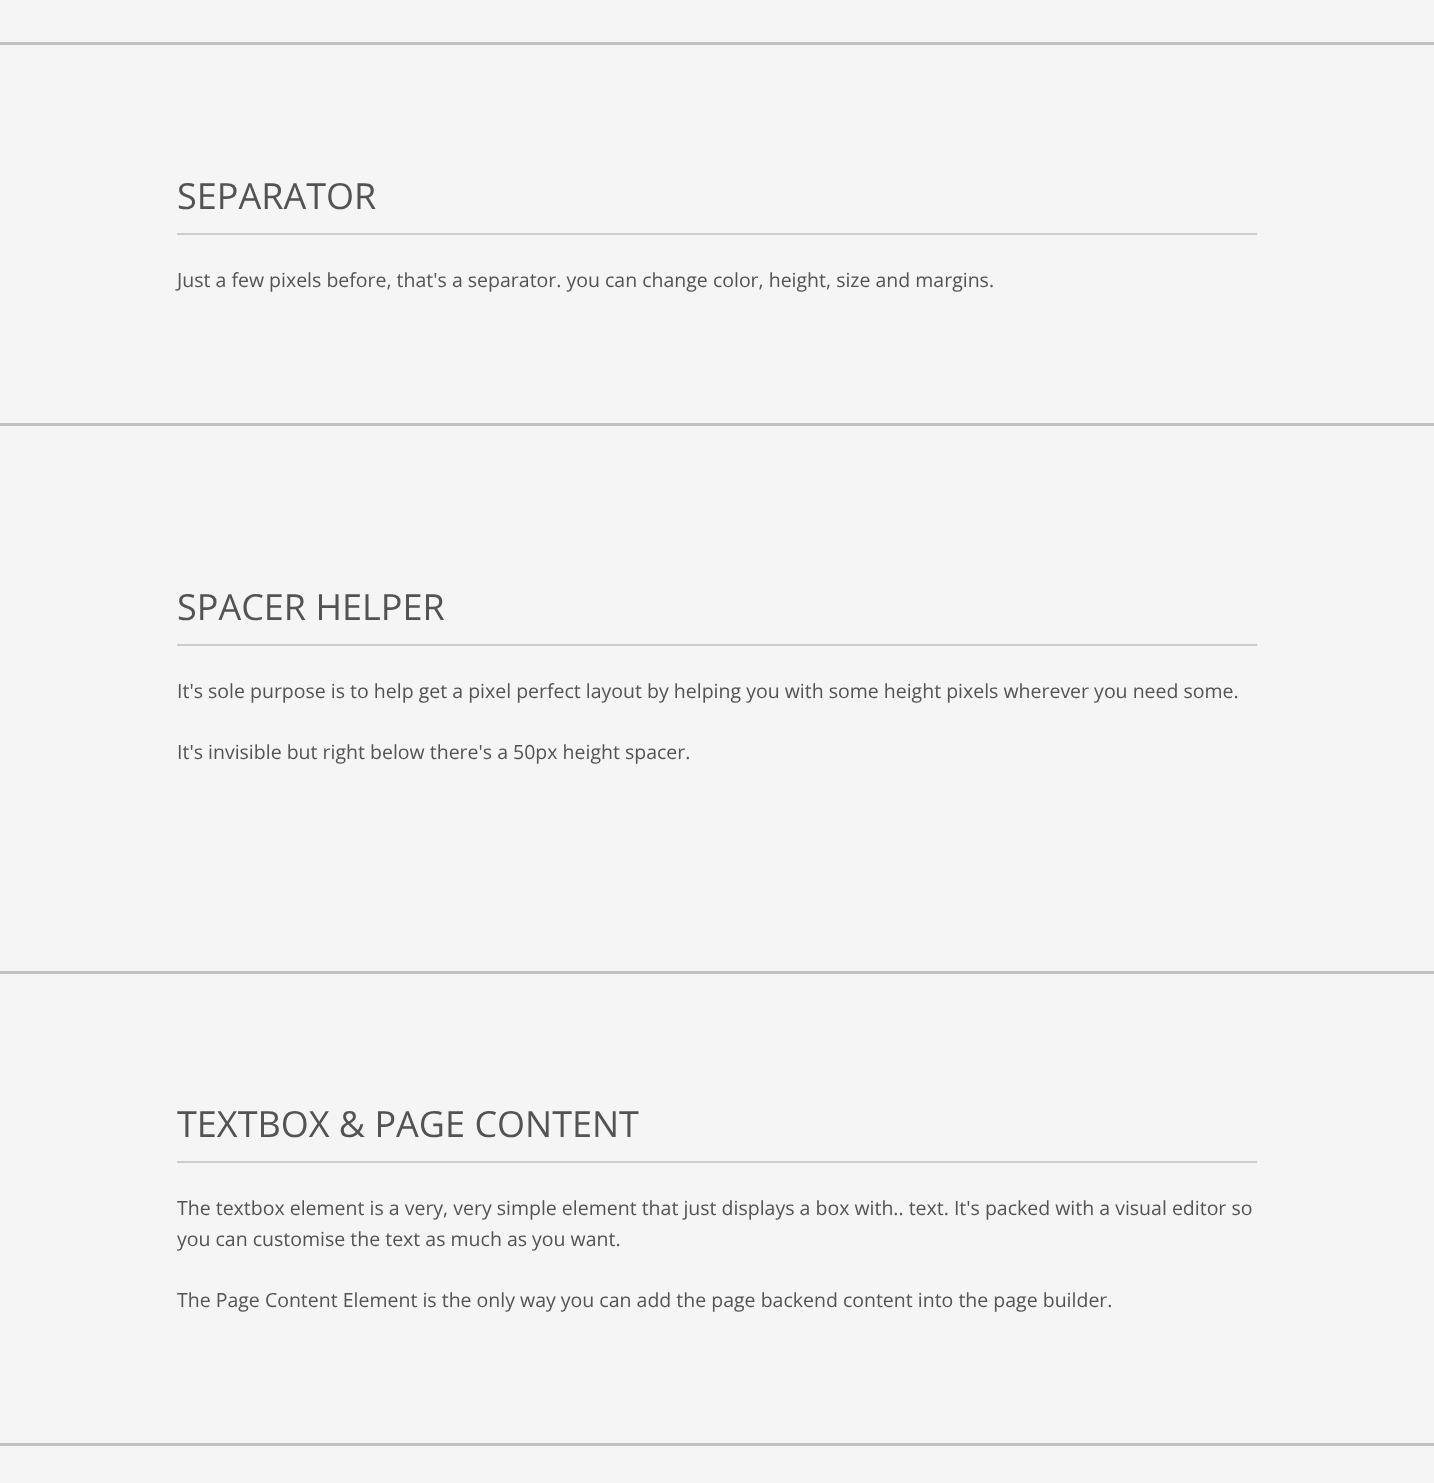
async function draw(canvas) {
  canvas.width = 1434
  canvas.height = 1483
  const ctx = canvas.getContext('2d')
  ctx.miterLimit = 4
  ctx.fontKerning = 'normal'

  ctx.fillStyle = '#f5f5f5'
  ctx.fillRect(0, 0, 1434, 1483)
  ctx.fillStyle = '#c1c1c1'
  ctx.fillRect(0, 42, 1434, 3)
  ctx.font = '36px Open Sans'
  ctx.fillStyle = '#535353'
  ctx.fillText('SEPARATOR', 177, 209)
  ctx.fillStyle = '#ccc'
  ctx.fillRect(177, 233, 1080, 2)
  ctx.font = '19.5px Open Sans'
  ctx.fillStyle = '#535353'
  ctx.fillText('Just a few pixels before, that\'s a separator. you can change color, height, size and margins.', 177, 287)
  ctx.fillStyle = '#c1c1c1'
  ctx.fillRect(0, 423, 1434, 3)
  ctx.font = '36px Open Sans'
  ctx.fillStyle = '#535353'
  ctx.fillText('SPACER HELPER', 177, 620)
  ctx.fillStyle = '#ccc'
  ctx.fillRect(177, 644, 1080, 2)
  ctx.font = '19.5px Open Sans'
  ctx.fillStyle = '#535353'
  ctx.fillText('It\'s sole purpose is to help get a pixel perfect layout by helping you with some height pixels wherever you need some.', 177, 698)
  ctx.fillText('It\'s invisible but right below there\'s a 50px height spacer.', 177, 759)
  ctx.fillStyle = '#c1c1c1'
  ctx.fillRect(0, 971, 1434, 3)
  ctx.font = '36px Open Sans'
  ctx.fillStyle = '#535353'
  ctx.fillText('TEXTBOX & PAGE CONTENT', 177, 1137)
  ctx.fillStyle = '#ccc'
  ctx.fillRect(177, 1161, 1080, 2)
  ctx.font = '19.5px Open Sans'
  ctx.fillStyle = '#535353'
  ctx.fillText('The textbox element is a very, very simple element that just displays a box with.. text. It\'s packed with a visual editor so', 177, 1215)
  ctx.fillText('you can customise the text as much as you want.', 177, 1246)
  ctx.fillText('The Page Content Element is the only way you can add the page backend content into the page builder.', 177, 1307)
  ctx.fillStyle = '#c1c1c1'
  ctx.fillRect(0, 1443, 1434, 3)
}

draw(document.querySelector('canvas'))
